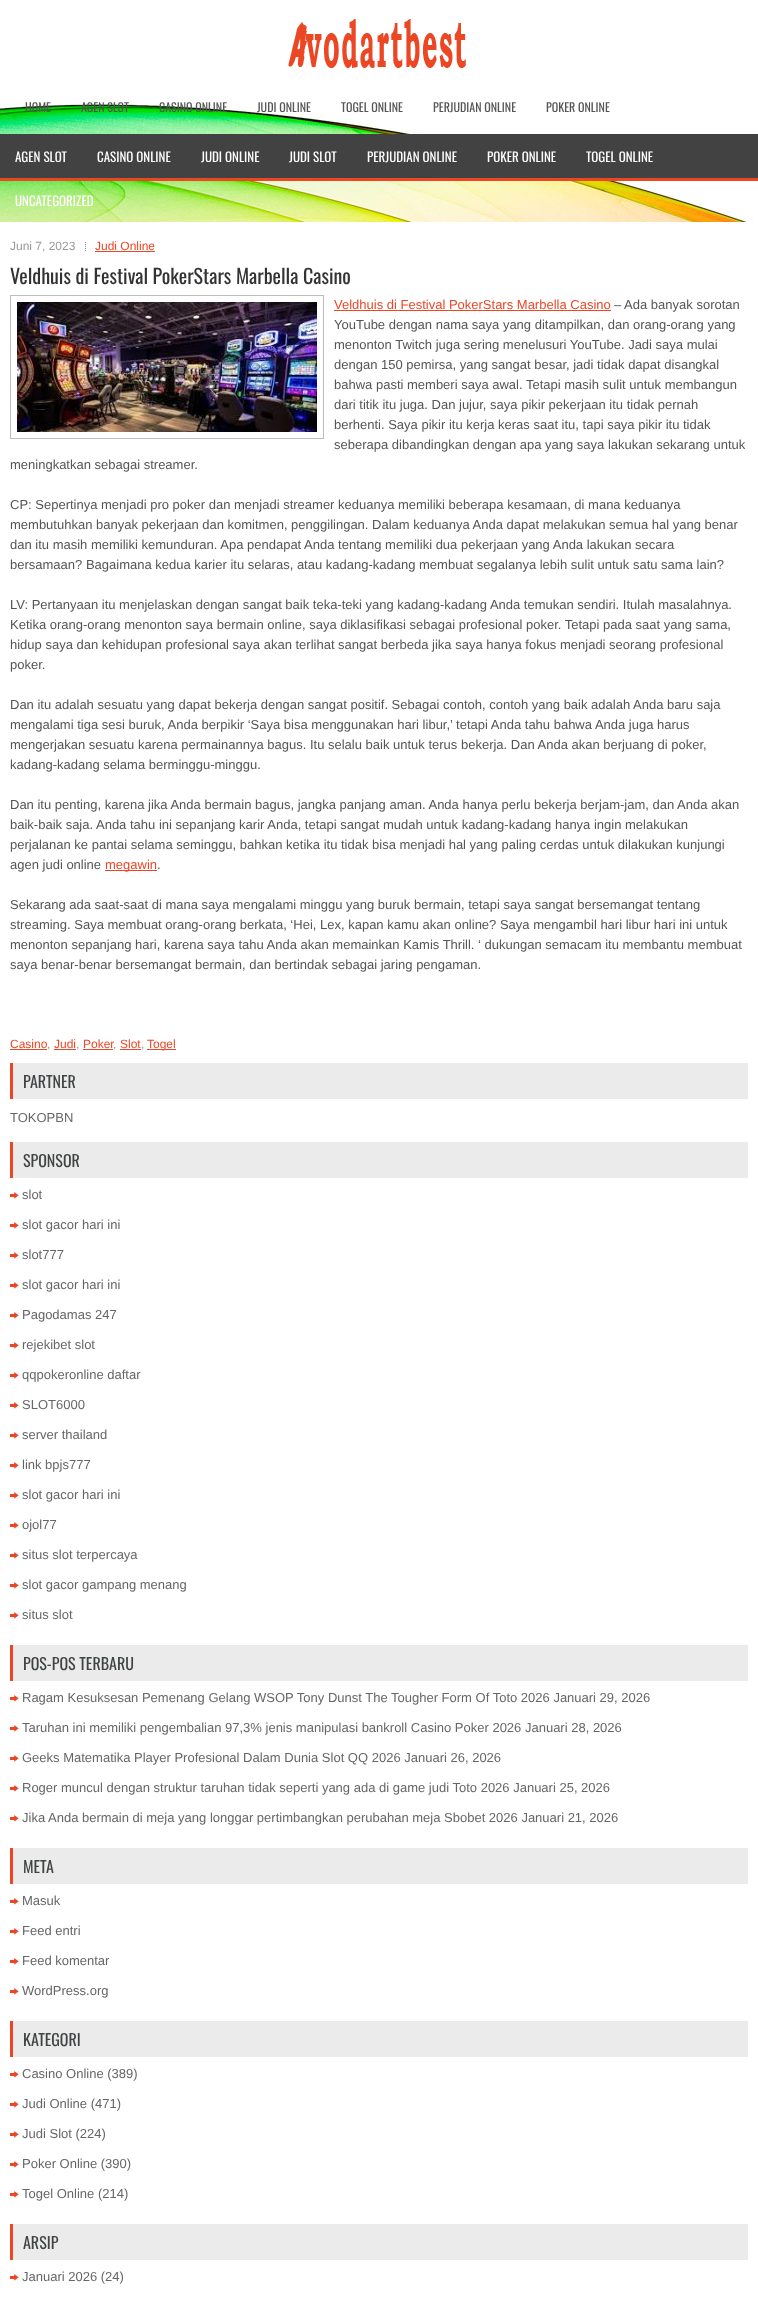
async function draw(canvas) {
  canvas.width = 758
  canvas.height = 2298
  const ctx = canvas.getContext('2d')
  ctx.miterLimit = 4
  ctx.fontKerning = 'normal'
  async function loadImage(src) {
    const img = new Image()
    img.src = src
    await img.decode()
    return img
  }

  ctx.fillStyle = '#fff'
  ctx.fillRect(0, 0, 758, 2298)
  ctx.drawImage(await loadImage('image0.png'), 0, 104, 758, 118)
  ctx.drawImage(await loadImage('image1.png'), 288, 19, 178, 49)
  ctx.font = '12px Oswald'
  ctx.fillStyle = '#555'
  ctx.fillText('HOME', 25, 112)
  ctx.fillText('AGEN SLOT', 81, 112)
  ctx.fillText('CASINO ONLINE', 159, 112)
  ctx.fillText('JUDI ONLINE', 257, 112)
  ctx.fillText('TOGEL ONLINE', 341, 112)
  ctx.fillText('PERJUDIAN ONLINE', 433, 112)
  ctx.fillText('POKER ONLINE', 546, 112)
  ctx.fillStyle = '#424242'
  ctx.fillRect(0, 134, 758, 44)
  ctx.fillStyle = '#ed4625'
  ctx.fillRect(0, 178, 758, 3)
  ctx.font = '13px Oswald'
  ctx.fillStyle = '#fffefe'
  ctx.fillText('AGEN SLOT', 15, 162)
  ctx.fillText('CASINO ONLINE', 97, 162)
  ctx.fillText('JUDI ONLINE', 201, 162)
  ctx.fillText('JUDI SLOT', 289, 162)
  ctx.fillText('PERJUDIAN ONLINE', 367, 162)
  ctx.fillText('POKER ONLINE', 487, 162)
  ctx.fillText('TOGEL ONLINE', 586, 162)
  ctx.fillText('UNCATEGORIZED', 15, 206)
  ctx.font = '12px Liberation Sans'
  ctx.fillStyle = '#999'
  ctx.fillText('Juni 7, 2023', 10, 250)
  ctx.drawImage(await loadImage('image2.png'), 85, 242, 1, 9)
  ctx.fillStyle = '#ed4625'
  ctx.fillText('Judi Online', 95, 250)
  ctx.fillRect(95, 251, 60, 1)
  ctx.font = '20px Oswald'
  ctx.fillStyle = '#333'
  ctx.fillText('Veldhuis di Festival PokerStars Marbella Casino', 10, 284)
  ctx.strokeStyle = '#bdbdbd'
  ctx.strokeRect(10.5, 295.5, 313, 143)
  ctx.drawImage(await loadImage('image3.png'), 17, 302, 300, 130)
  ctx.font = '13px Liberation Sans'
  ctx.fillStyle = '#ed4625'
  ctx.fillText('Veldhuis di Festival PokerStars Marbella Casino', 334, 309)
  ctx.fillRect(334, 310, 277, 1)
  ctx.fillStyle = '#555'
  ctx.fillText('– Ada banyak sorotan', 614, 309)
  ctx.fillText('YouTube dengan nama saya yang ditampilkan, dan orang-orang yang', 334, 329)
  ctx.fillText('menonton Twitch juga sering menelusuri YouTube. Jadi saya mulai', 334, 349)
  ctx.fillText('dengan 150 pemirsa, yang sangat besar, jadi tidak dapat disangkal', 334, 369)
  ctx.fillText('bahwa pasti memberi saya awal. Tetapi masih sulit untuk membangun', 334, 389)
  ctx.fillText('dari titik itu juga. Dan jujur, saya pikir pekerjaan itu tidak pernah', 334, 409)
  ctx.fillText('berhenti. Saya pikir itu kerja keras saat itu, tapi saya pikir itu tidak', 334, 429)
  ctx.fillText('seberapa dibandingkan dengan apa yang saya lakukan sekarang untuk', 334, 449)
  ctx.fillText('meningkatkan sebagai streamer.', 10, 469)
  ctx.fillText('CP: Sepertinya menjadi pro poker dan menjadi streamer keduanya memiliki beberapa kesamaan, di mana keduanya', 10, 509)
  ctx.fillText('membutuhkan banyak pekerjaan dan komitmen, penggilingan. Dalam keduanya Anda dapat melakukan semua hal yang benar', 10, 529)
  ctx.fillText('dan itu masih memiliki kemunduran. Apa pendapat Anda tentang memiliki dua pekerjaan yang Anda lakukan secara', 10, 549)
  ctx.fillText('bersamaan? Bagaimana kedua karier itu selaras, atau kadang-kadang membuat segalanya lebih sulit untuk satu sama lain?', 10, 569)
  ctx.fillText('LV: Pertanyaan itu menjelaskan dengan sangat baik teka-teki yang kadang-kadang Anda temukan sendiri. Itulah masalahnya.', 10, 609)
  ctx.fillText('Ketika orang-orang menonton saya bermain online, saya diklasifikasi sebagai profesional poker. Tetapi pada saat yang sama,', 10, 629)
  ctx.fillText('hidup saya dan kehidupan profesional saya akan terlihat sangat berbeda jika saya hanya fokus menjadi seorang profesional', 10, 649)
  ctx.fillText('poker.', 10, 669)
  ctx.fillText('Dan itu adalah sesuatu yang dapat bekerja dengan sangat positif. Sebagai contoh, contoh yang baik adalah Anda baru saja', 10, 709)
  ctx.fillText('mengalami tiga sesi buruk, Anda berpikir ‘Saya bisa menggunakan hari libur,’ tetapi Anda tahu bahwa Anda juga harus', 10, 729)
  ctx.fillText('mengerjakan sesuatu karena permainannya bagus. Itu selalu baik untuk terus bekerja. Dan Anda akan berjuang di poker,', 10, 749)
  ctx.fillText('kadang-kadang selama berminggu-minggu.', 10, 769)
  ctx.fillText('Dan itu penting, karena jika Anda bermain bagus, jangka panjang aman. Anda hanya perlu bekerja berjam-jam, dan Anda akan', 10, 809)
  ctx.fillText('baik-baik saja. Anda tahu ini sepanjang karir Anda, tetapi sangat mudah untuk kadang-kadang hanya ingin melakukan', 10, 829)
  ctx.fillText('perjalanan ke pantai selama seminggu, bahkan ketika itu tidak bisa menjadi hal yang paling cerdas untuk dilakukan kunjungi', 10, 849)
  ctx.fillText('agen judi online', 10, 869)
  ctx.fillStyle = '#ed4625'
  ctx.fillRect(105, 870, 52, 1)
  ctx.fillText('megawin', 105, 869)
  ctx.fillStyle = '#555'
  ctx.fillText('.', 157, 869)
  ctx.fillText('Sekarang ada saat-saat di mana saya mengalami minggu yang buruk bermain, tetapi saya sangat bersemangat tentang', 10, 909)
  ctx.fillText('streaming. Saya membuat orang-orang berkata, ‘Hei, Lex, kapan kamu akan online? Saya mengambil hari libur hari ini untuk', 10, 929)
  ctx.fillText('menonton sepanjang hari, karena saya tahu Anda akan memainkan Kamis Thrill. ‘ dukungan semacam itu membantu membuat', 10, 949)
  ctx.fillText('saya benar-benar bersemangat bermain, dan bertindak sebagai jaring pengaman.', 10, 969)
  ctx.font = '12px Liberation Sans'
  ctx.fillStyle = '#ed4625'
  ctx.fillText('Casino', 10, 1048)
  ctx.fillStyle = '#999'
  ctx.fillText(',', 47, 1048)
  ctx.fillStyle = '#ed4625'
  ctx.fillRect(10, 1049, 37, 1)
  ctx.fillText('Judi', 54, 1048)
  ctx.fillStyle = '#999'
  ctx.fillText(',', 76, 1048)
  ctx.fillStyle = '#ed4625'
  ctx.fillRect(54, 1049, 22, 1)
  ctx.fillText('Poker', 83, 1048)
  ctx.fillStyle = '#999'
  ctx.fillText(',', 113, 1048)
  ctx.fillStyle = '#ed4625'
  ctx.fillRect(83, 1049, 30, 1)
  ctx.fillText('Slot', 120, 1048)
  ctx.fillStyle = '#999'
  ctx.fillText(',', 141, 1048)
  ctx.fillStyle = '#ed4625'
  ctx.fillRect(120, 1049, 21, 1)
  ctx.fillRect(147, 1049, 29, 1)
  ctx.fillText('Togel', 147, 1048)
  ctx.fillStyle = '#ebebeb'
  ctx.fillRect(13, 1063, 735, 36)
  ctx.fillStyle = '#ed4625'
  ctx.fillRect(10, 1063, 3, 36)
  ctx.font = '16px Oswald'
  ctx.fillStyle = '#414445'
  ctx.fillText('PARTNER', 23, 1088)
  ctx.font = '13px Liberation Sans'
  ctx.fillStyle = '#666'
  ctx.fillText('TOKOPBN', 10, 1122)
  ctx.fillStyle = '#ebebeb'
  ctx.fillRect(13, 1142, 735, 36)
  ctx.fillStyle = '#ed4625'
  ctx.fillRect(10, 1142, 3, 36)
  ctx.font = '16px Oswald'
  ctx.fillStyle = '#414445'
  ctx.fillText('SPONSOR', 23, 1167)
  ctx.drawImage(await loadImage('image4.png'), 10, 1192, 9, 7)
  ctx.font = '13px Liberation Sans'
  ctx.fillStyle = '#666'
  ctx.fillText('slot', 22, 1199)
  ctx.drawImage(await loadImage('image4.png'), 10, 1222, 9, 7)
  ctx.fillText('slot gacor hari ini', 22, 1229)
  ctx.drawImage(await loadImage('image4.png'), 10, 1252, 9, 7)
  ctx.fillText('slot777', 22, 1259)
  ctx.drawImage(await loadImage('image4.png'), 10, 1282, 9, 7)
  ctx.fillText('slot gacor hari ini', 22, 1289)
  ctx.drawImage(await loadImage('image4.png'), 10, 1312, 9, 7)
  ctx.fillText('Pagodamas 247', 22, 1319)
  ctx.drawImage(await loadImage('image4.png'), 10, 1342, 9, 7)
  ctx.fillText('rejekibet slot', 22, 1349)
  ctx.drawImage(await loadImage('image4.png'), 10, 1372, 9, 7)
  ctx.fillText('qqpokeronline daftar', 22, 1379)
  ctx.drawImage(await loadImage('image4.png'), 10, 1402, 9, 7)
  ctx.fillText('SLOT6000', 22, 1409)
  ctx.drawImage(await loadImage('image4.png'), 10, 1432, 9, 7)
  ctx.fillText('server thailand', 22, 1439)
  ctx.drawImage(await loadImage('image4.png'), 10, 1462, 9, 7)
  ctx.fillText('link bpjs777', 22, 1469)
  ctx.drawImage(await loadImage('image4.png'), 10, 1492, 9, 7)
  ctx.fillText('slot gacor hari ini', 22, 1499)
  ctx.drawImage(await loadImage('image4.png'), 10, 1522, 9, 7)
  ctx.fillText('ojol77', 22, 1529)
  ctx.drawImage(await loadImage('image4.png'), 10, 1552, 9, 7)
  ctx.fillText('situs slot terpercaya', 22, 1559)
  ctx.drawImage(await loadImage('image4.png'), 10, 1582, 9, 7)
  ctx.fillText('slot gacor gampang menang', 22, 1589)
  ctx.drawImage(await loadImage('image4.png'), 10, 1612, 9, 7)
  ctx.fillText('situs slot', 22, 1619)
  ctx.fillStyle = '#ebebeb'
  ctx.fillRect(13, 1645, 735, 36)
  ctx.fillStyle = '#ed4625'
  ctx.fillRect(10, 1645, 3, 36)
  ctx.font = '16px Oswald'
  ctx.fillStyle = '#414445'
  ctx.fillText('POS-POS TERBARU', 23, 1670)
  ctx.drawImage(await loadImage('image4.png'), 10, 1695, 9, 7)
  ctx.font = '13px Liberation Sans'
  ctx.fillStyle = '#666'
  ctx.fillText('Ragam Kesuksesan Pemenang Gelang WSOP Tony Dunst The Tougher Form Of Toto 2026 Januari 29, 2026', 22, 1702)
  ctx.drawImage(await loadImage('image4.png'), 10, 1725, 9, 7)
  ctx.fillText('Taruhan ini memiliki pengembalian 97,3% jenis manipulasi bankroll Casino Poker 2026 Januari 28, 2026', 22, 1732)
  ctx.drawImage(await loadImage('image4.png'), 10, 1755, 9, 7)
  ctx.fillText('Geeks Matematika Player Profesional Dalam Dunia Slot QQ 2026 Januari 26, 2026', 22, 1762)
  ctx.drawImage(await loadImage('image4.png'), 10, 1785, 9, 7)
  ctx.fillText('Roger muncul dengan struktur taruhan tidak seperti yang ada di game judi Toto 2026 Januari 25, 2026', 22, 1792)
  ctx.drawImage(await loadImage('image4.png'), 10, 1815, 9, 7)
  ctx.fillText('Jika Anda bermain di meja yang longgar pertimbangkan perubahan meja Sbobet 2026 Januari 21, 2026', 22, 1822)
  ctx.fillStyle = '#ebebeb'
  ctx.fillRect(13, 1848, 735, 36)
  ctx.fillStyle = '#ed4625'
  ctx.fillRect(10, 1848, 3, 36)
  ctx.font = '16px Oswald'
  ctx.fillStyle = '#414445'
  ctx.fillText('META', 23, 1873)
  ctx.drawImage(await loadImage('image4.png'), 10, 1898, 9, 7)
  ctx.font = '13px Liberation Sans'
  ctx.fillStyle = '#666'
  ctx.fillText('Masuk', 22, 1905)
  ctx.drawImage(await loadImage('image4.png'), 10, 1928, 9, 7)
  ctx.fillText('Feed entri', 22, 1935)
  ctx.drawImage(await loadImage('image4.png'), 10, 1958, 9, 7)
  ctx.fillText('Feed komentar', 22, 1965)
  ctx.drawImage(await loadImage('image4.png'), 10, 1988, 9, 7)
  ctx.fillText('WordPress.org', 22, 1995)
  ctx.fillStyle = '#ebebeb'
  ctx.fillRect(13, 2021, 735, 36)
  ctx.fillStyle = '#ed4625'
  ctx.fillRect(10, 2021, 3, 36)
  ctx.font = '16px Oswald'
  ctx.fillStyle = '#414445'
  ctx.fillText('KATEGORI', 23, 2046)
  ctx.drawImage(await loadImage('image4.png'), 10, 2071, 9, 7)
  ctx.font = '13px Liberation Sans'
  ctx.fillStyle = '#666'
  ctx.fillText('Casino Online (389)', 22, 2078)
  ctx.drawImage(await loadImage('image4.png'), 10, 2101, 9, 7)
  ctx.fillText('Judi Online (471)', 22, 2108)
  ctx.drawImage(await loadImage('image4.png'), 10, 2131, 9, 7)
  ctx.fillText('Judi Slot (224)', 22, 2138)
  ctx.drawImage(await loadImage('image4.png'), 10, 2161, 9, 7)
  ctx.fillText('Poker Online (390)', 22, 2168)
  ctx.drawImage(await loadImage('image4.png'), 10, 2191, 9, 7)
  ctx.fillText('Togel Online (214)', 22, 2198)
  ctx.fillStyle = '#ebebeb'
  ctx.fillRect(13, 2224, 735, 36)
  ctx.fillStyle = '#ed4625'
  ctx.fillRect(10, 2224, 3, 36)
  ctx.font = '16px Oswald'
  ctx.fillStyle = '#414445'
  ctx.fillText('ARSIP', 23, 2249)
  ctx.drawImage(await loadImage('image4.png'), 10, 2274, 9, 7)
  ctx.font = '13px Liberation Sans'
  ctx.fillStyle = '#666'
  ctx.fillText('Januari 2026 (24)', 22, 2281)
}

draw(document.querySelector('canvas'))
